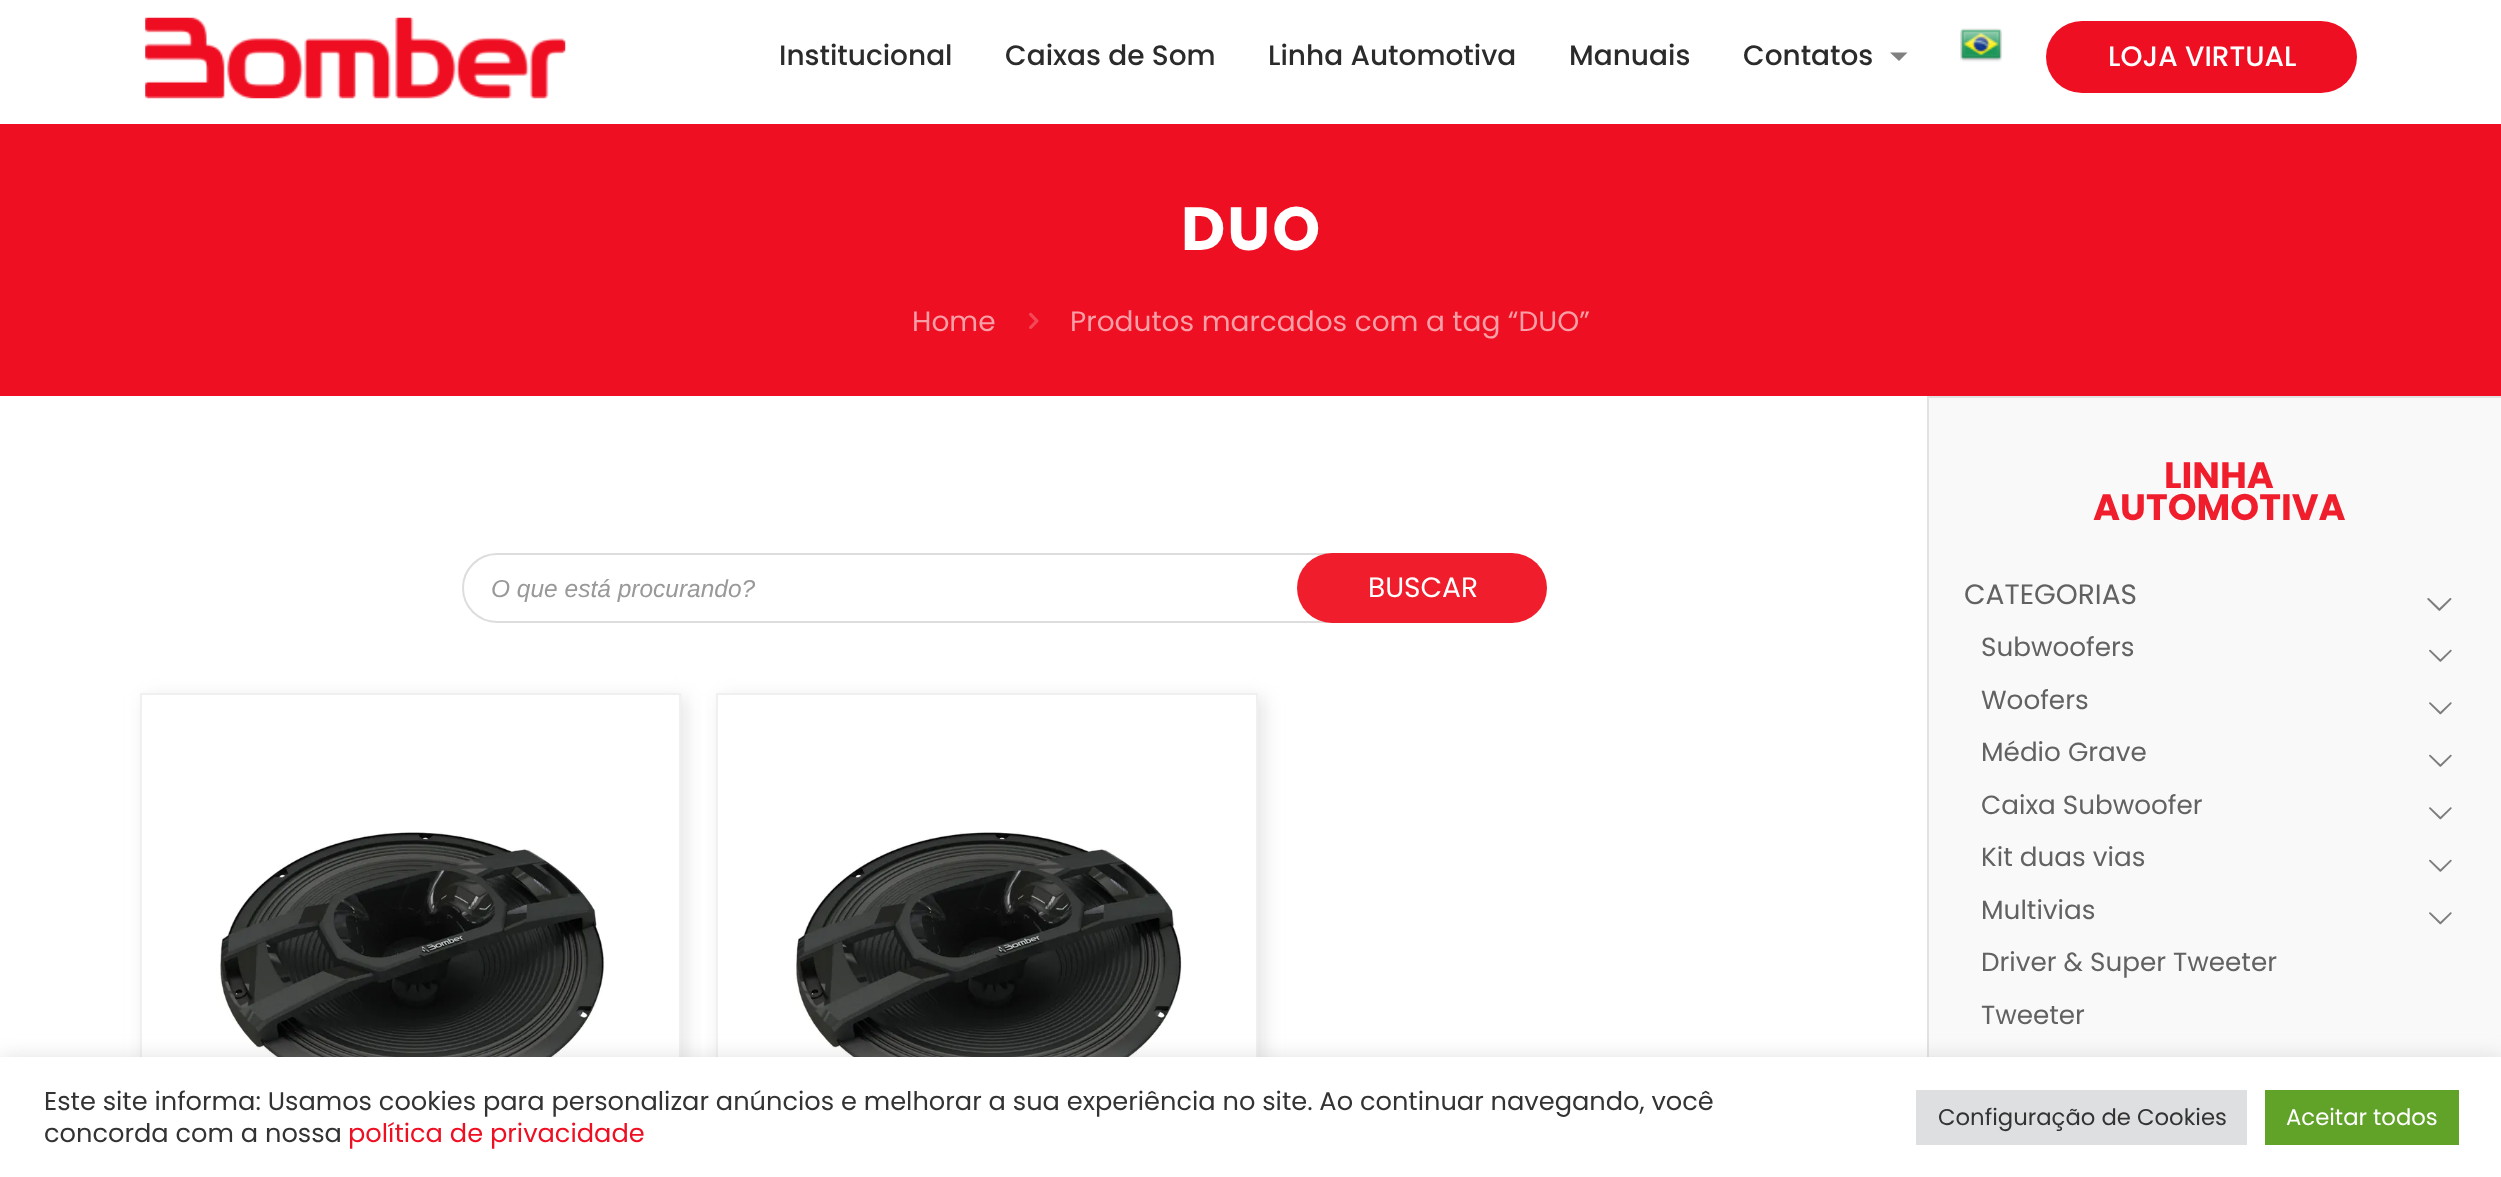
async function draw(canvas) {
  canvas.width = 2501
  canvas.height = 1177
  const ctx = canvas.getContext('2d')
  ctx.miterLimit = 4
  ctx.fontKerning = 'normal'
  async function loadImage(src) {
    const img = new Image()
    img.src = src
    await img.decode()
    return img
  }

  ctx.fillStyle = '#fff'
  ctx.fillRect(0, 0, 2501, 1177)
  ctx.drawImage(await loadImage('image0.png'), 145, 17, 421, 82)
  ctx.font = '500 28px Poppins'
  ctx.fillStyle = '#2b2b2b'
  ctx.fillText('Institucional', 779, 65)
  ctx.fillText('Caixas de Som', 1005, 65)
  ctx.fillText('Linha Automotiva', 1268, 65)
  ctx.fillText('Manuais', 1569, 65)
  ctx.fillText('Contatos', 1743, 65)
  ctx.fillStyle = '#808080'
  ctx.beginPath()
  ctx.moveTo(1890, 52.5)
  ctx.lineTo(1907.5, 52.5)
  ctx.lineTo(1899, 61)
  ctx.closePath()
  ctx.fill()
  ctx.drawImage(await loadImage('image1.png'), 1960, 28, 42, 34)
  ctx.fillStyle = '#ef0f22'
  ctx.beginPath()
  ctx.roundRect(2046, 21, 311, 72, 36)
  ctx.fill()
  ctx.fillStyle = '#fff'
  ctx.fillText('LOJA VIRTUAL', 2108, 66)
  ctx.fillStyle = '#ef0f22'
  ctx.fillRect(0, 124, 2501, 272)
  ctx.letterSpacing = '2px'
  ctx.font = 'bold 61px Poppins'
  ctx.fillStyle = '#fff'
  ctx.fillText('DUO', 1181, 250)
  ctx.letterSpacing = '0px'
  ctx.font = '28px Poppins'
  ctx.fillStyle = '#f99fa7'
  ctx.fillText('Home', 912, 331)
  ctx.drawImage(await loadImage('image2.png'), 1029, 312, 10, 17)
  ctx.fillText('Produtos marcados com a tag “DUO”', 1070, 331)
  ctx.beginPath()
  ctx.roundRect(463, 554, 1048, 68, 34)
  ctx.strokeStyle = '#ddd'
  ctx.lineWidth = 2
  ctx.stroke()
  ctx.font = 'italic 24.5px Liberation Sans'
  ctx.fillStyle = '#999'
  ctx.fillText('O que está procurando?', 491, 597)
  ctx.fillStyle = '#f01d2c'
  ctx.beginPath()
  ctx.roundRect(1297, 553, 250, 70, 35)
  ctx.fill()
  ctx.font = '28px Poppins'
  ctx.fillStyle = '#fff'
  ctx.fillText('BUSCAR', 1368, 597)
  ctx.save()
  ctx.beginPath()
  ctx.moveTo(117, 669)
  ctx.lineTo(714, 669)
  ctx.lineTo(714, 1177)
  ctx.lineTo(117, 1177)
  ctx.closePath()
  ctx.moveTo(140, 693)
  ctx.lineTo(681, 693)
  ctx.lineTo(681, 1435)
  ctx.lineTo(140, 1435)
  ctx.closePath()
  ctx.clip('evenodd')
  ctx.fillStyle = '#e5e5e5'
  ctx.filter = 'blur(9px)'
  ctx.beginPath()
  ctx.rect(145, 697, 541, 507)
  ctx.fill()
  ctx.filter = 'none'
  ctx.restore()
  ctx.strokeStyle = '#f0f0f0'
  ctx.strokeRect(141, 694, 539, 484)
  ctx.drawImage(await loadImage('image3.png'), 219, 832, 386, 225)
  ctx.save()
  ctx.beginPath()
  ctx.moveTo(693, 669)
  ctx.lineTo(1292, 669)
  ctx.lineTo(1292, 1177)
  ctx.lineTo(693, 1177)
  ctx.closePath()
  ctx.moveTo(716, 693)
  ctx.lineTo(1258, 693)
  ctx.lineTo(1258, 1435)
  ctx.lineTo(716, 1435)
  ctx.closePath()
  ctx.clip('evenodd')
  ctx.fillStyle = '#e5e5e5'
  ctx.filter = 'blur(9px)'
  ctx.beginPath()
  ctx.rect(721, 697, 543, 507)
  ctx.fill()
  ctx.filter = 'none'
  ctx.restore()
  ctx.strokeRect(717, 694, 540, 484)
  ctx.drawImage(await loadImage('image4.png'), 795, 832, 387, 225)
  ctx.fillStyle = '#f9f9f9'
  ctx.fillRect(1929, 398, 572, 659)
  ctx.strokeStyle = '#e2e2e2'
  ctx.strokeRect(1928, 397, 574, 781)
  ctx.font = 'bold 36.75px Poppins'
  ctx.fillStyle = '#f01d2c'
  ctx.fillText('LINHA', 2164, 488)
  ctx.fillText('AUTOMOTIVA', 2093, 520)
  ctx.font = '28px Poppins'
  ctx.fillStyle = '#626262'
  ctx.fillText('CATEGORIAS', 1964, 604)
  ctx.drawImage(await loadImage('image5.png'), 2427, 598, 25, 13)
  ctx.font = '26.25px Poppins'
  ctx.fillText('Subwoofers', 1981, 656)
  ctx.drawImage(await loadImage('image6.png'), 2429, 649, 23, 13)
  ctx.fillText('Woofers', 1981, 709)
  ctx.drawImage(await loadImage('image7.png'), 2429, 702, 23, 13)
  ctx.fillText('Médio Grave', 1981, 761)
  ctx.drawImage(await loadImage('image6.png'), 2429, 754, 23, 13)
  ctx.fillText('Caixa Subwoofer', 1981, 814)
  ctx.drawImage(await loadImage('image7.png'), 2429, 807, 23, 13)
  ctx.fillText('Kit duas vias', 1981, 866)
  ctx.drawImage(await loadImage('image6.png'), 2429, 859, 23, 13)
  ctx.fillText('Multivias', 1981, 919)
  ctx.drawImage(await loadImage('image7.png'), 2429, 912, 23, 13)
  ctx.fillText('Driver & Super Tweeter', 1981, 971)
  ctx.fillText('Tweeter', 1981, 1024)
  ctx.fillStyle = '#acabab4d'
  ctx.filter = 'blur(9px)'
  ctx.beginPath()
  ctx.rect(0, 1055, 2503, 121)
  ctx.fill()
  ctx.filter = 'none'
  ctx.fillStyle = '#fff'
  ctx.fillRect(0, 1057, 2501, 120)
  ctx.font = '25.67px Poppins'
  ctx.fillStyle = '#333'
  ctx.fillText('Este site informa: Usamos cookies para personalizar anúncios e melhorar a sua experiência no site. Ao continuar navegando, você', 44, 1110)
  ctx.fillText('concorda com a nossa', 44, 1142)
  ctx.fillStyle = '#ef0f22'
  ctx.fillText('política de privacidade', 348, 1142)
  ctx.fillStyle = '#dedfe0'
  ctx.fillRect(1916, 1090, 331, 55)
  ctx.font = '22.75px Poppins'
  ctx.fillStyle = '#333'
  ctx.fillText('Configuração de Cookies', 1938, 1125)
  ctx.fillStyle = '#61a229'
  ctx.fillRect(2265, 1090, 194, 55)
  ctx.fillStyle = '#fff'
  ctx.fillText('Aceitar todos', 2286, 1125)
}

draw(document.querySelector('canvas'))
